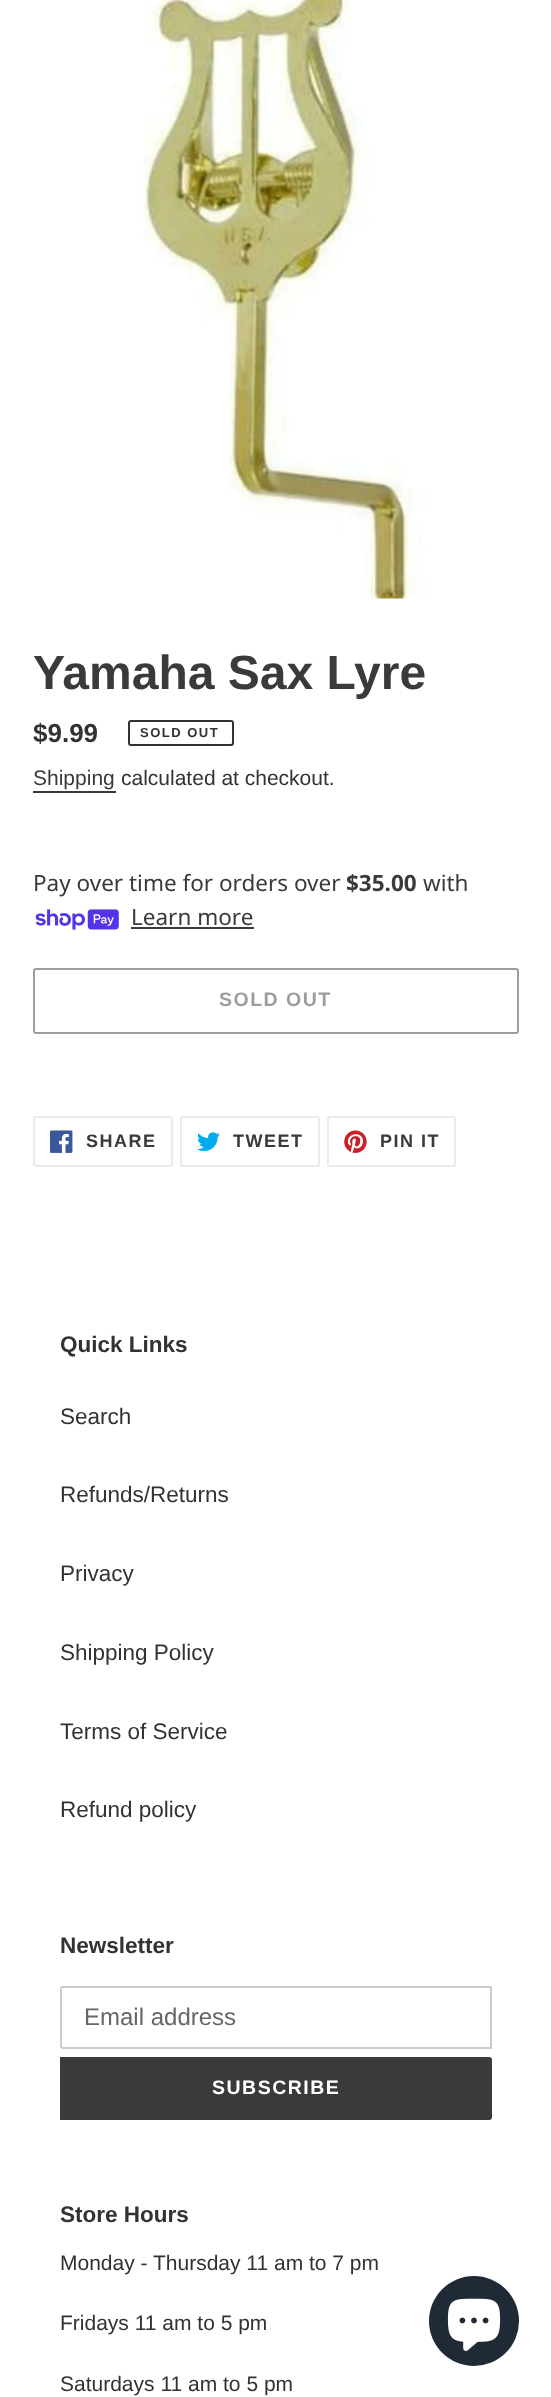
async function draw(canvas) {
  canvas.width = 551
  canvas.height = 2397
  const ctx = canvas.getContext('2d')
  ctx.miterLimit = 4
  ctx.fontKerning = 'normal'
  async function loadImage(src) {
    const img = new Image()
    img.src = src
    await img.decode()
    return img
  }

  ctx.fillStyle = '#fff'
  ctx.fillRect(0, 0, 551, 2397)
  ctx.drawImage(await loadImage('image0.png'), 142, 0, 284, 599)
  ctx.font = 'bold 48px Liberation Sans'
  ctx.fillStyle = '#3a3a3a'
  ctx.fillText('Yamaha Sax Lyre', 33, 689)
  ctx.font = 'bold 26px Liberation Sans'
  ctx.fillStyle = '#333232'
  ctx.fillText('$9.99', 33, 742)
  ctx.beginPath()
  ctx.roundRect(129, 721, 104, 24, 2)
  ctx.strokeStyle = '#333232'
  ctx.lineWidth = 2
  ctx.stroke()
  ctx.letterSpacing = '1.5px'
  ctx.font = 'bold 13px Liberation Sans'
  ctx.fillText('SOLD OUT', 140, 737)
  ctx.letterSpacing = '0px'
  ctx.font = '21px Liberation Sans'
  ctx.fillStyle = '#3a3a3a'
  ctx.fillText('Shipping', 33, 785)
  ctx.fillRect(33, 791, 83, 2)
  ctx.fillStyle = '#333232'
  ctx.fillText('calculated at checkout.', 121, 785)
  ctx.font = '22.5px Noto Sans'
  ctx.fillStyle = '#3a3a3a'
  ctx.fillText('Pay over time for orders over', 33, 891)
  ctx.font = 'bold 22.5px Noto Sans'
  ctx.fillText('$35.00', 346, 891)
  ctx.font = '22.5px Noto Sans'
  ctx.fillText('with', 423, 891)
  ctx.drawImage(await loadImage('image1.png'), 35, 909, 84, 21)
  ctx.fillText('Learn more', 131, 925)
  ctx.fillRect(131, 927, 123, 2)
  ctx.beginPath()
  ctx.roundRect(34, 969, 484, 64, 2)
  ctx.strokeStyle = '#9d9d9d'
  ctx.stroke()
  ctx.letterSpacing = '1.5px'
  ctx.font = 'bold 19.5px Liberation Sans'
  ctx.fillStyle = '#9d9d9d'
  ctx.fillText('SOLD OUT', 219, 1006)
  ctx.beginPath()
  ctx.roundRect(34, 1117, 138, 49, 2)
  ctx.strokeStyle = '#ebebeb'
  ctx.stroke()
  ctx.drawImage(await loadImage('image2.png'), 50, 1130, 23, 23)
  ctx.font = 'bold 18px Liberation Sans'
  ctx.fillStyle = '#3a3a3a'
  ctx.fillText('SHARE', 86, 1147)
  ctx.beginPath()
  ctx.roundRect(181, 1117, 138, 49, 2)
  ctx.stroke()
  ctx.drawImage(await loadImage('image3.png'), 197, 1132, 23, 20)
  ctx.fillText('TWEET', 233, 1147)
  ctx.beginPath()
  ctx.roundRect(328, 1117, 127, 49, 2)
  ctx.stroke()
  ctx.drawImage(await loadImage('image4.png'), 344, 1130, 23, 23)
  ctx.fillText('PIN IT', 380, 1147)
  ctx.letterSpacing = '0px'
  ctx.font = 'bold 22.5px Liberation Sans'
  ctx.fillStyle = '#333232'
  ctx.fillText('Quick Links', 60, 1352)
  ctx.font = '22.5px Liberation Sans'
  ctx.fillText('Search', 60, 1424)
  ctx.fillText('Refunds/Returns', 60, 1502)
  ctx.fillText('Privacy', 60, 1581)
  ctx.fillText('Shipping Policy', 60, 1660)
  ctx.fillText('Terms of Service', 60, 1739)
  ctx.fillText('Refund policy', 60, 1817)
  ctx.font = 'bold 22.5px Liberation Sans'
  ctx.fillText('Newsletter', 60, 1953)
  ctx.beginPath()
  ctx.roundRect(61, 1987, 430, 61, [2, 0, 0, 2])
  ctx.strokeStyle = '#ccc'
  ctx.stroke()
  ctx.font = '24px Liberation Sans'
  ctx.fillStyle = '#666'
  ctx.fillText('Email address', 84, 2025)
  ctx.fillStyle = '#3a3a3a'
  ctx.beginPath()
  ctx.roundRect(60, 2057, 432, 63, [0, 3, 3, 0])
  ctx.fill()
  ctx.letterSpacing = '1.5px'
  ctx.font = 'bold 19.5px Liberation Sans'
  ctx.fillStyle = '#fff'
  ctx.fillText('SUBSCRIBE', 212, 2094)
  ctx.letterSpacing = '0px'
  ctx.font = 'bold 22.5px Liberation Sans'
  ctx.fillStyle = '#333232'
  ctx.fillText('Store Hours', 60, 2222)
  ctx.font = '21px Liberation Sans'
  ctx.fillText('Monday - Thursday 11 am to 7 pm', 60, 2270)
  ctx.fillText('Fridays 11 am to 5 pm', 60, 2330)
  ctx.fillText('Saturdays 11 am to 5 pm', 60, 2391)
  ctx.fillStyle = '#202a36'
  ctx.beginPath()
  ctx.arc(474, 2321, 45, 0, 2 * Math.PI)
  ctx.fill()
  ctx.drawImage(await loadImage('image5.png'), 447, 2298, 54, 53)
}

draw(document.querySelector('canvas'))
